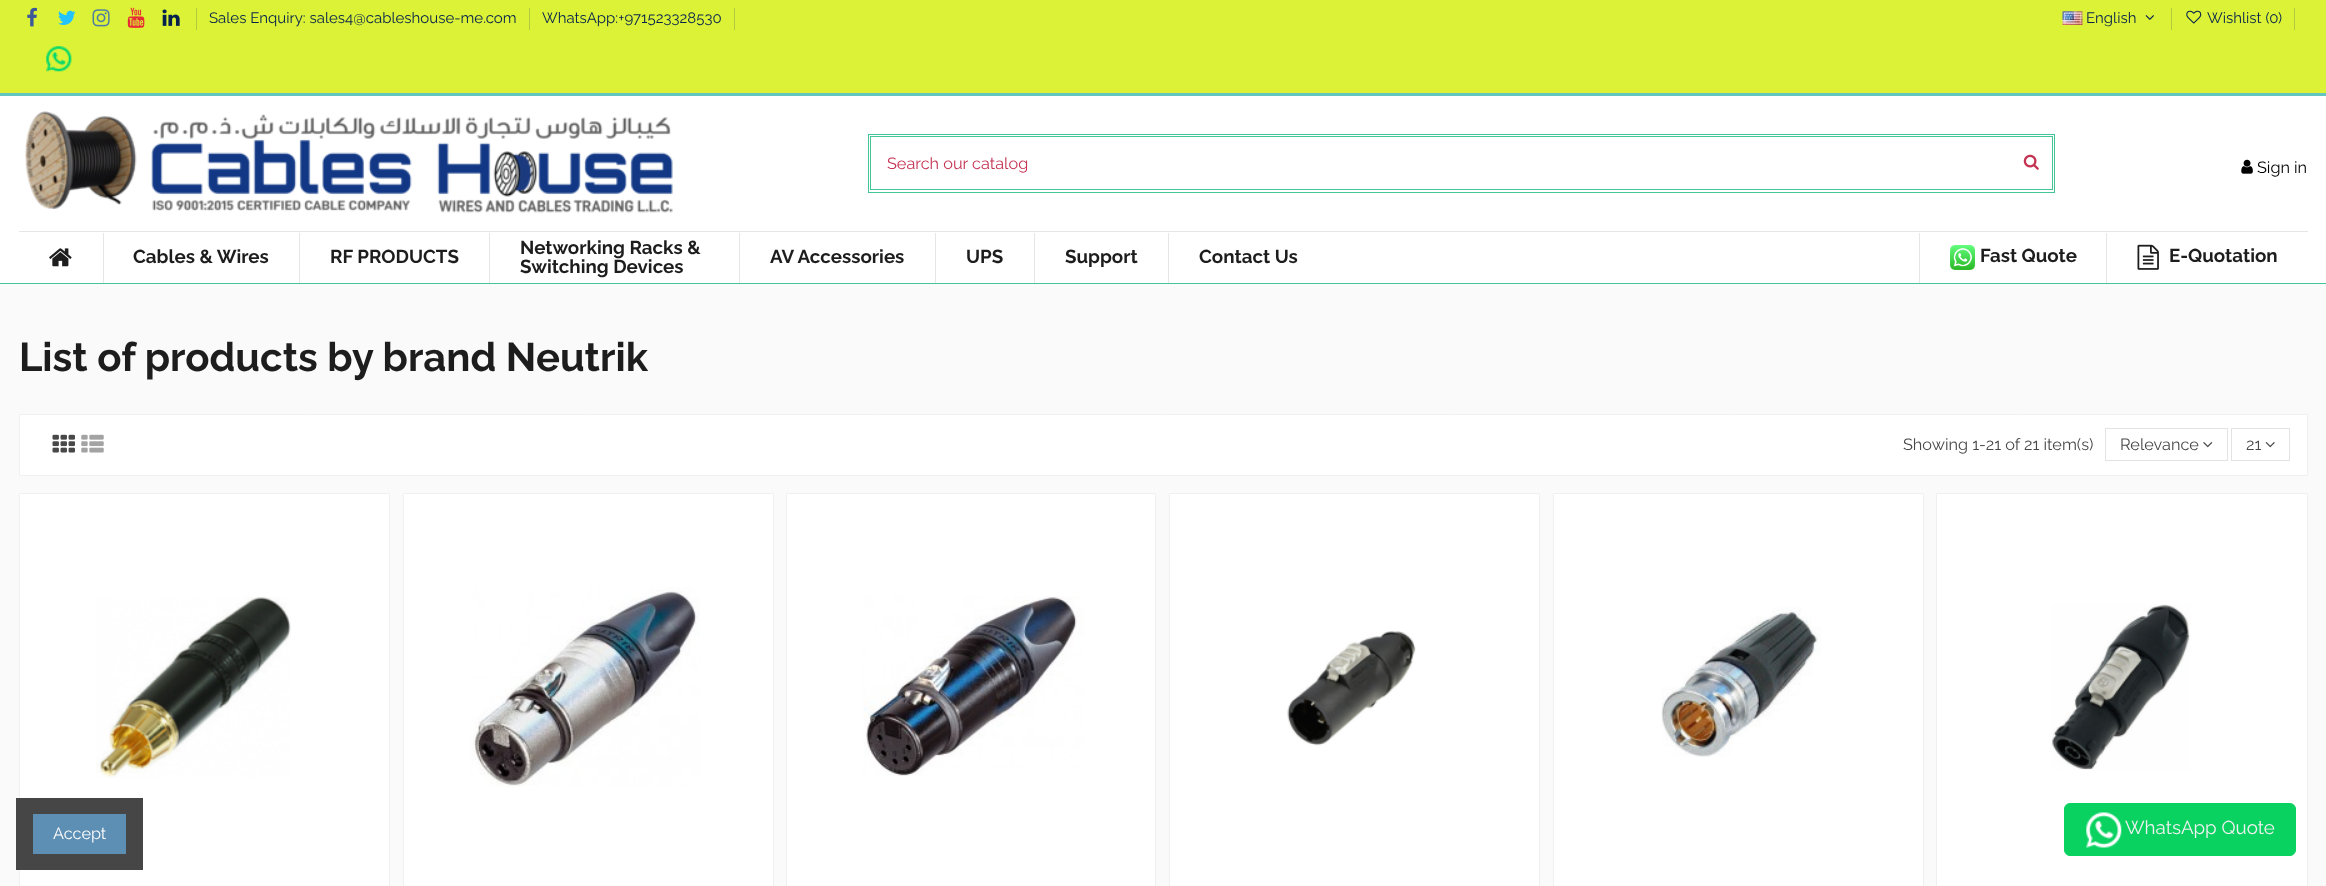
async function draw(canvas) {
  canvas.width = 2326
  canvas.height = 886
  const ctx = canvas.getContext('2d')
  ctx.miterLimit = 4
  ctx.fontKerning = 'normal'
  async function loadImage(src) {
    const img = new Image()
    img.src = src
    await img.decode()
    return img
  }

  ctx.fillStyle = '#fafafa'
  ctx.fillRect(0, 0, 2326, 886)
  ctx.fillStyle = '#fff'
  ctx.fillRect(0, 96, 2326, 187)
  ctx.fillStyle = '#45c496'
  ctx.fillRect(0, 283, 2326, 1)
  ctx.fillStyle = '#dbf237'
  ctx.fillRect(0, 0, 2326, 93)
  ctx.fillStyle = '#63c5bf'
  ctx.fillRect(0, 93, 2326, 3)
  ctx.drawImage(await loadImage('image0.png'), 27, 7, 10, 20)
  ctx.drawImage(await loadImage('image1.png'), 58, 10, 18, 15)
  ctx.drawImage(await loadImage('image2.png'), 92, 9, 18, 18)
  ctx.drawImage(await loadImage('image3.png'), 127, 7, 18, 21)
  ctx.drawImage(await loadImage('image4.png'), 162, 9, 18, 17)
  ctx.fillStyle = '#b1ca3e'
  ctx.fillRect(196, 8, 1, 22)
  ctx.font = '15px Raleway'
  ctx.fillStyle = '#05214c'
  ctx.fillText('Sales Enquiry: sales4@cableshouse-me.com', 209, 23)
  ctx.fillStyle = '#b1ca3e'
  ctx.fillRect(529, 8, 1, 22)
  ctx.fillStyle = '#05214c'
  ctx.fillText('WhatsApp:+971523328530', 542, 23)
  ctx.fillStyle = '#b1ca3e'
  ctx.fillRect(734, 8, 1, 22)
  ctx.drawImage(await loadImage('image5.png'), 46, 46, 26, 26)
  ctx.drawImage(await loadImage('image6.png'), 2062, 11, 21, 14)
  ctx.fillStyle = '#05214c'
  ctx.fillText('English', 2086, 23)
  ctx.drawImage(await loadImage('image7.png'), 2145, 15, 9, 5)
  ctx.fillStyle = '#b1ca3e'
  ctx.fillRect(2171, 8, 1, 22)
  ctx.drawImage(await loadImage('image8.png'), 2186, 10, 16, 14)
  ctx.fillStyle = '#05214c'
  ctx.fillText('Wishlist (0', 2207, 23)
  ctx.fillText(')', 2278, 23)
  ctx.fillStyle = '#b1ca3e'
  ctx.fillRect(2294, 8, 1, 22)
  ctx.drawImage(await loadImage('image9.png'), 25, 111, 648, 102)
  ctx.strokeStyle = '#45c496'
  ctx.strokeRect(868.5, 134.5, 1186, 58)
  ctx.strokeRect(870.5, 136.5, 1182, 53)
  ctx.font = '16.25px Raleway'
  ctx.fillStyle = '#c53353'
  ctx.fillText('Search our catalog', 887, 169)
  ctx.drawImage(await loadImage('image10.png'), 2023, 154, 16, 16)
  ctx.drawImage(await loadImage('image11.png'), 2241, 159, 12, 15)
  ctx.fillStyle = '#000'
  ctx.fillText('Sign in', 2257, 173)
  ctx.fillStyle = '#e6e6e6'
  ctx.fillRect(19, 231, 2289, 1)
  ctx.drawImage(await loadImage('image12.png'), 49, 248, 23, 19)
  ctx.fillRect(103, 233, 1, 50)
  ctx.font = 'bold 18.75px Raleway'
  ctx.fillStyle = '#1d1d1d'
  ctx.fillText('Cables & Wires', 133, 263)
  ctx.fillStyle = '#e6e6e6'
  ctx.fillRect(299, 233, 1, 50)
  ctx.fillStyle = '#1d1d1d'
  ctx.fillText('RF PRODUCTS', 330, 263)
  ctx.fillStyle = '#e6e6e6'
  ctx.fillRect(489, 233, 1, 50)
  ctx.fillStyle = '#1d1d1d'
  ctx.fillText('Networking Racks &', 520, 254)
  ctx.fillText('Switching Devices', 520, 273)
  ctx.fillStyle = '#e6e6e6'
  ctx.fillRect(739, 233, 1, 50)
  ctx.fillStyle = '#1d1d1d'
  ctx.fillText('AV Accessories', 770, 263)
  ctx.fillStyle = '#e6e6e6'
  ctx.fillRect(935, 233, 1, 50)
  ctx.fillStyle = '#1d1d1d'
  ctx.fillText('UPS', 966, 263)
  ctx.fillStyle = '#e6e6e6'
  ctx.fillRect(1034, 233, 1, 50)
  ctx.fillStyle = '#1d1d1d'
  ctx.fillText('Support', 1065, 263)
  ctx.fillStyle = '#e6e6e6'
  ctx.fillRect(1168, 233, 1, 50)
  ctx.fillStyle = '#1d1d1d'
  ctx.fillText('Contact Us', 1199, 263)
  ctx.fillStyle = '#e6e6e6'
  ctx.fillRect(1919, 233, 1, 50)
  ctx.drawImage(await loadImage('image13.png'), 1950, 245, 25, 25)
  ctx.fillStyle = '#1d1d1d'
  ctx.fillText('Fast Quote', 1980, 262)
  ctx.fillStyle = '#e6e6e6'
  ctx.fillRect(2106, 233, 1, 50)
  ctx.drawImage(await loadImage('image14.png'), 2137, 244, 22, 26)
  ctx.fillStyle = '#1d1d1d'
  ctx.fillText('E-Quotation', 2169, 262)
  ctx.font = 'bold 40px Raleway'
  ctx.fillText('List of products by brand Neutrik', 19, 371)
  ctx.fillStyle = '#fff'
  ctx.beginPath()
  ctx.rect(19.5, 414.5, 2288, 61)
  ctx.fill()
  ctx.strokeStyle = '#f0f0f0'
  ctx.stroke()
  ctx.drawImage(await loadImage('image15.png'), 52, 434, 23, 19)
  ctx.drawImage(await loadImage('image16.png'), 81, 434, 23, 19)
  ctx.font = '16.25px Raleway'
  ctx.fillStyle = '#484848'
  ctx.fillText('Showing 1-21 of 21 item(s)', 1903, 450)
  ctx.strokeStyle = '#e3e3e3'
  ctx.strokeRect(2105.5, 428.5, 122, 32)
  ctx.fillText('Relevance', 2120, 450)
  ctx.drawImage(await loadImage('image17.png'), 2203, 442, 10, 6)
  ctx.strokeRect(2231.5, 428.5, 58, 32)
  ctx.fillText('21', 2246, 450)
  ctx.drawImage(await loadImage('image18.png'), 2265, 442, 10, 6)
  ctx.fillStyle = '#fff'
  ctx.beginPath()
  ctx.rect(19.5, 493.5, 370, 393)
  ctx.fill()
  ctx.strokeStyle = '#f0f0f0'
  ctx.stroke()
  ctx.drawImage(await loadImage('image19.png'), 96, 597, 195, 181)
  ctx.beginPath()
  ctx.rect(403.5, 493.5, 370, 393)
  ctx.fill()
  ctx.stroke()
  ctx.drawImage(await loadImage('image20.png'), 470, 587, 230, 200)
  ctx.beginPath()
  ctx.rect(786.5, 493.5, 369, 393)
  ctx.fill()
  ctx.stroke()
  ctx.drawImage(await loadImage('image21.png'), 863, 596, 221, 180)
  ctx.beginPath()
  ctx.rect(1169.5, 493.5, 370, 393)
  ctx.fill()
  ctx.stroke()
  ctx.drawImage(await loadImage('image22.png'), 1287, 631, 129, 115)
  ctx.beginPath()
  ctx.rect(1553.5, 493.5, 370, 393)
  ctx.fill()
  ctx.stroke()
  ctx.drawImage(await loadImage('image23.png'), 1661, 607, 160, 150)
  ctx.beginPath()
  ctx.rect(1936.5, 493.5, 371, 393)
  ctx.fill()
  ctx.stroke()
  ctx.drawImage(await loadImage('image24.png'), 2051, 604, 140, 166)
  ctx.fillStyle = '#09d261'
  ctx.beginPath()
  ctx.roundRect(2064.5, 803.5, 231, 52, 5.5)
  ctx.fill()
  ctx.strokeStyle = '#09d261'
  ctx.stroke()
  ctx.drawImage(await loadImage('image25.png'), 2086, 812, 36, 36)
  ctx.font = '18.75px Raleway'
  ctx.fillStyle = '#f1f1f1'
  ctx.fillText('WhatsApp Quote', 2125, 834)
  ctx.fillStyle = '#464646'
  ctx.fillRect(16, 798, 127, 72)
  ctx.fillStyle = '#5d8eb3'
  ctx.fillRect(33, 814, 93, 40)
  ctx.font = '16.25px Raleway'
  ctx.fillStyle = '#fff'
  ctx.fillText('Accept', 53, 839)
}

draw(document.querySelector('canvas'))
